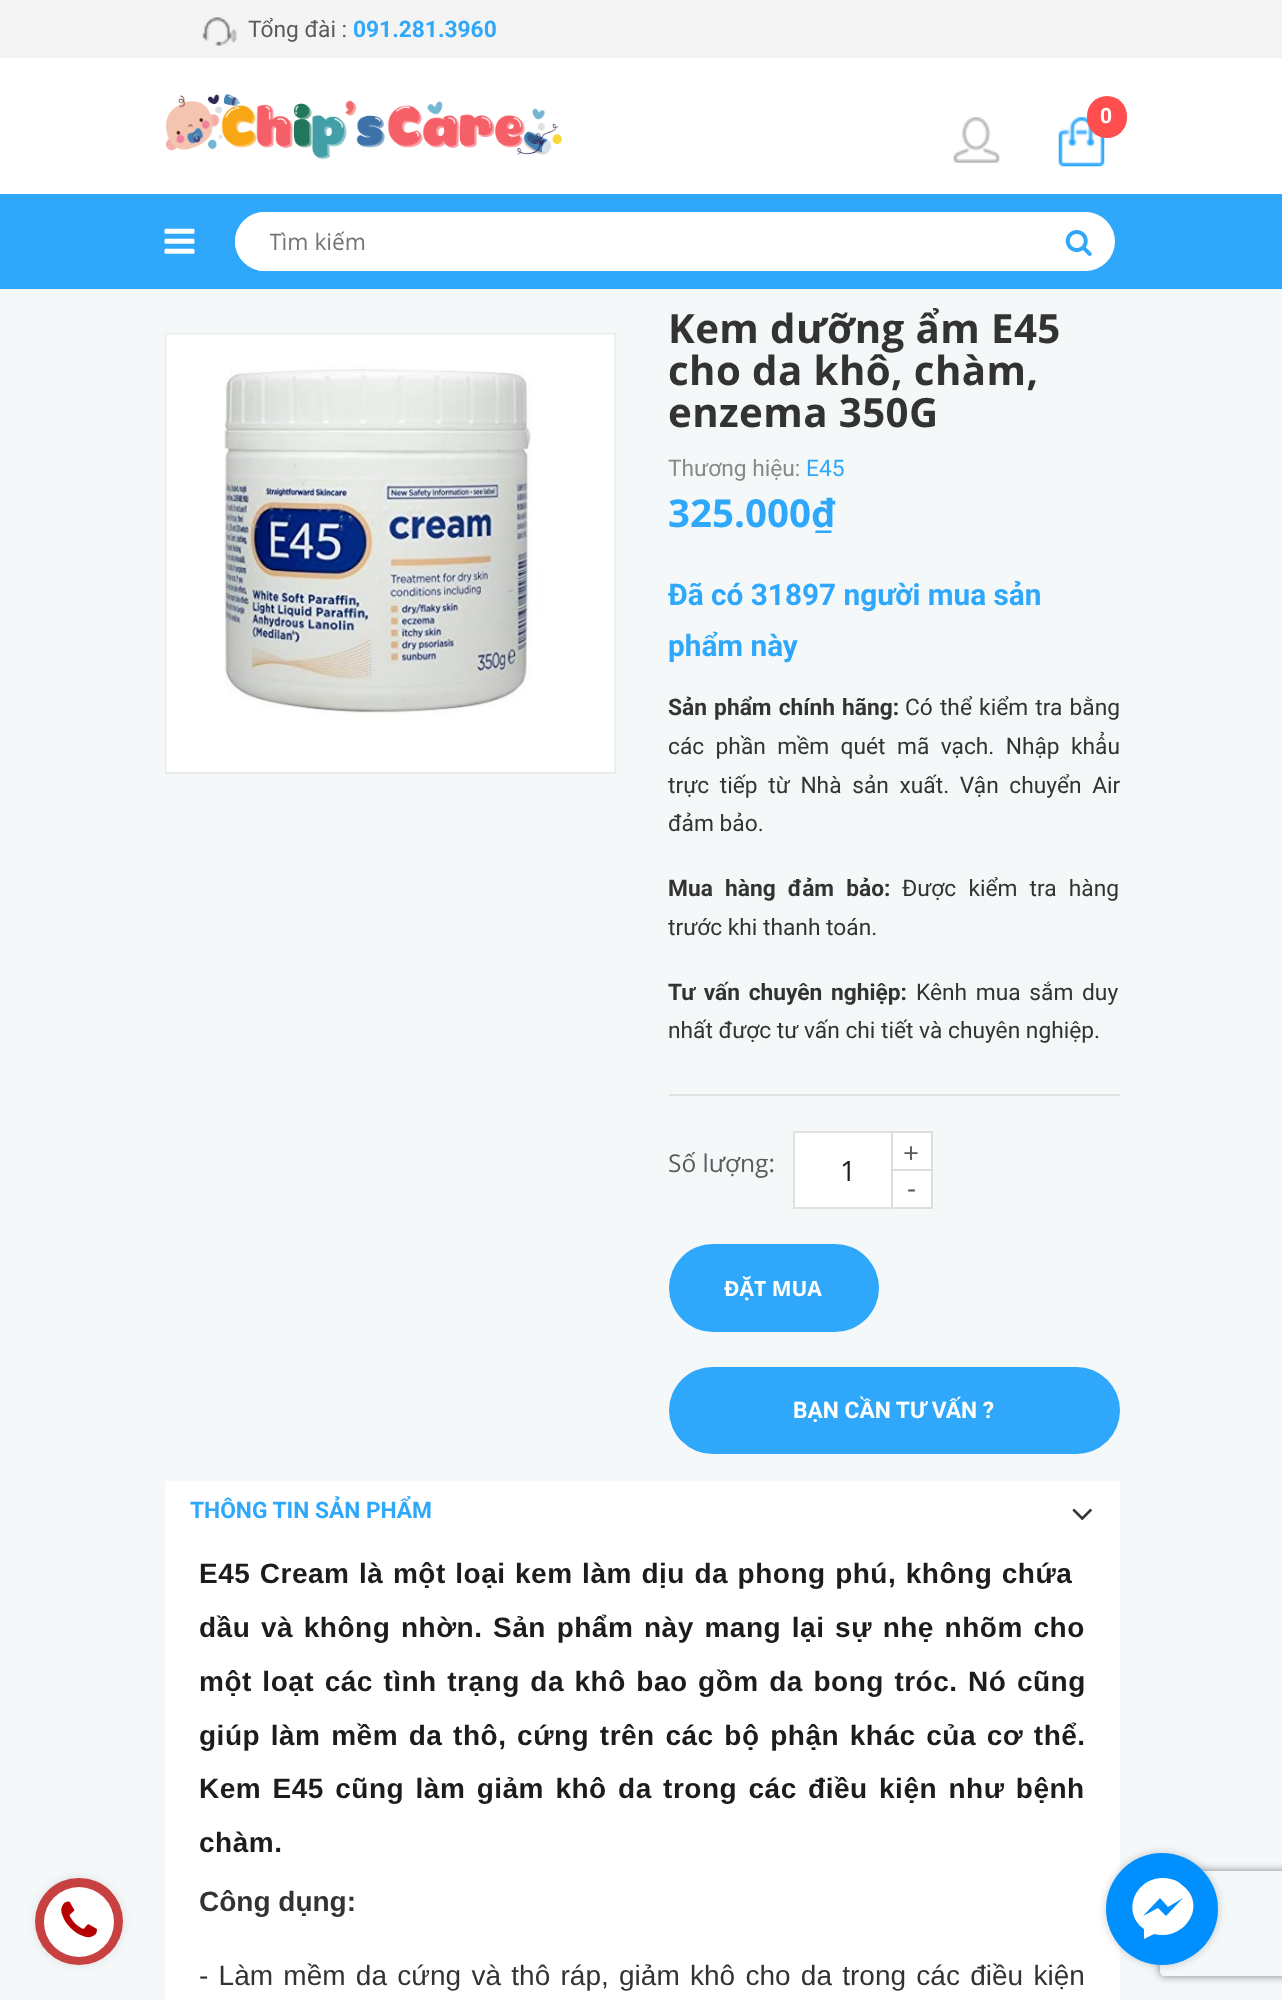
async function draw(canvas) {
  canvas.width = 1282
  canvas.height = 2000
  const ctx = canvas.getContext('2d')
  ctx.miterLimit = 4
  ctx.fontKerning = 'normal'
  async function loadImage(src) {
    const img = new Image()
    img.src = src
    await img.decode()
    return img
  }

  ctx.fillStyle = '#f4f8f9'
  ctx.fillRect(0, 0, 1282, 2000)
  ctx.fillStyle = '#f4f4f4'
  ctx.fillRect(0, 0, 1282, 58)
  ctx.drawImage(await loadImage('image0.png'), 202, 17, 35, 29)
  ctx.font = '22.75px Roboto'
  ctx.fillStyle = '#5a5a5a'
  ctx.fillText('Tổng đài :', 248, 37)
  ctx.font = 'bold 22.75px Roboto'
  ctx.fillStyle = '#2fa8fc'
  ctx.fillText('091.281.3960', 353, 37)
  ctx.fillStyle = '#fff'
  ctx.fillRect(0, 58, 1282, 136)
  ctx.drawImage(await loadImage('image1.png'), 166, 94, 396, 66)
  ctx.drawImage(await loadImage('image2.png'), 953, 117, 47, 46)
  ctx.drawImage(await loadImage('image3.png'), 1058, 117, 47, 50)
  ctx.fillStyle = '#ff4e4d'
  ctx.beginPath()
  ctx.roundRect(1087, 96, 40, 42, 20)
  ctx.fill()
  ctx.font = 'bold 21px Roboto'
  ctx.fillStyle = '#fff'
  ctx.fillText('0', 1100, 123)
  ctx.fillStyle = '#2fa8fc'
  ctx.fillRect(0, 194, 1282, 95)
  ctx.drawImage(await loadImage('image4.png'), 164, 228, 31, 26)
  ctx.fillStyle = '#fff'
  ctx.beginPath()
  ctx.roundRect(235, 212, 876, 59, 29.5)
  ctx.fill()
  ctx.beginPath()
  ctx.roundRect(235, 212, 808, 59, 29.5)
  ctx.fill()
  ctx.save()
  ctx.beginPath()
  ctx.rect(270, 226, 731, 31)
  ctx.clip()
  ctx.font = '22.75px Open Sans'
  ctx.fillStyle = '#757575'
  ctx.fillText('Tìm kiếm', 269, 250)
  ctx.restore()
  ctx.beginPath()
  ctx.roundRect(1045, 212, 70, 59, 29.5)
  ctx.fill()
  ctx.drawImage(await loadImage('image5.png'), 1065, 230, 27, 26)
  ctx.strokeStyle = '#ebebeb'
  ctx.lineWidth = 2
  ctx.strokeRect(166, 334, 449, 439)
  ctx.drawImage(await loadImage('image6.png'), 166, 334, 449, 438)
  ctx.letterSpacing = '0.4px'
  ctx.font = 'bold 40.25px Open Sans'
  ctx.fillStyle = '#333'
  ctx.fillText('Kem dưỡng ẩm E45', 668, 343)
  ctx.fillText('cho da khô, chàm,', 668, 385)
  ctx.fillText('enzema 350G', 668, 427)
  ctx.letterSpacing = '0px'
  ctx.font = '22.75px Roboto'
  ctx.fillStyle = '#898989'
  ctx.fillText('Thương hiệu:', 668, 476)
  ctx.fillStyle = '#2fa8fc'
  ctx.fillText('E45', 806, 476)
  ctx.font = 'bold 38.5px Open Sans'
  ctx.fillText('325.000₫', 668, 527)
  ctx.font = 'bold 29.75px Roboto'
  ctx.fillText('Đã có 31897 người mua sản', 668, 605)
  ctx.fillText('phẩm này', 668, 656)
  ctx.wordSpacing = '1.5px'
  ctx.font = 'bold 22.75px Roboto'
  ctx.fillStyle = '#333'
  ctx.fillText('Sản phẩm chính hãng:', 668, 715)
  ctx.font = '22.75px Roboto'
  ctx.fillText('Có thể kiểm tra bằng', 905, 715)
  ctx.wordSpacing = '5.75px'
  ctx.fillText('các phần mềm quét mã vạch. Nhập khẩu', 668, 754)
  ctx.wordSpacing = '5px'
  ctx.fillText('trực tiếp từ Nhà sản xuất. Vận chuyển Air', 668, 793)
  ctx.wordSpacing = '0px'
  ctx.fillText('đảm bảo.', 668, 831)
  ctx.wordSpacing = '6.5px'
  ctx.font = 'bold 22.75px Roboto'
  ctx.fillText('Mua hàng đảm bảo:', 668, 896)
  ctx.font = '22.75px Roboto'
  ctx.fillText('Được kiểm tra hàng', 902, 896)
  ctx.wordSpacing = '0px'
  ctx.fillText('trước khi thanh toán.', 668, 935)
  ctx.wordSpacing = '3px'
  ctx.font = 'bold 22.75px Roboto'
  ctx.fillText('Tư vấn chuyên nghiệp:', 668, 1000)
  ctx.font = '22.75px Roboto'
  ctx.fillText('Kênh mua sắm duy', 916, 1000)
  ctx.wordSpacing = '0px'
  ctx.fillText('nhất được tư vấn chi tiết và chuyên nghiệp.', 668, 1038)
  ctx.fillStyle = '#e1e1e1'
  ctx.fillRect(669, 1094, 451, 2)
  ctx.font = '24.5px Open Sans'
  ctx.fillStyle = '#5a5a5a'
  ctx.fillText('Số lượng:', 668, 1172)
  ctx.fillStyle = '#fff'
  ctx.beginPath()
  ctx.rect(794, 1132, 138, 76)
  ctx.fill()
  ctx.strokeStyle = '#e1e1e1'
  ctx.stroke()
  ctx.font = '28px Open Sans'
  ctx.fillStyle = '#1c1c1c'
  ctx.fillText('1', 840, 1181)
  ctx.strokeStyle = '#ddd'
  ctx.strokeRect(892, 1170, 40, 38)
  ctx.strokeRect(892, 1132, 40, 38)
  ctx.fillStyle = '#5a5a5a'
  ctx.fillText('+', 903, 1163)
  ctx.fillText('-', 907, 1198)
  ctx.fillStyle = '#2fa8fc'
  ctx.beginPath()
  ctx.roundRect(669, 1244, 210, 88, 44)
  ctx.fill()
  ctx.font = 'bold 21px Open Sans'
  ctx.fillStyle = '#fff'
  ctx.fillText('ĐẶT MUA', 724, 1296)
  ctx.fillStyle = '#2fa8fc'
  ctx.beginPath()
  ctx.roundRect(669, 1367, 451, 87, 43.5)
  ctx.fill()
  ctx.font = 'bold 22.75px Roboto'
  ctx.fillStyle = '#fff'
  ctx.fillText('BẠN CẦN TƯ VẤN ?', 793, 1418)
  ctx.fillRect(165, 1481, 955, 519)
  ctx.fillStyle = '#2fa8fc'
  ctx.fillText('THÔNG TIN SẢN PHẨM', 190, 1518)
  ctx.drawImage(await loadImage('image7.png'), 1072, 1508, 20, 13)
  ctx.letterSpacing = '0.5px'
  ctx.wordSpacing = '1.25px'
  ctx.font = 'bold 28px Liberation Sans'
  ctx.fillStyle = '#1c1c1c'
  ctx.fillText('E45 Cream là một loại kem làm dịu da phong phú, không chứa', 199, 1583)
  ctx.wordSpacing = '2.4px'
  ctx.fillText('dầu và không nhờn. Sản phẩm này mang lại sự nhẹ nhõm cho', 199, 1637)
  ctx.wordSpacing = '2.25px'
  ctx.fillText('một loạt các tình trạng da khô bao gồm da bong tróc. Nó cũng', 199, 1691)
  ctx.wordSpacing = '2.4px'
  ctx.fillText('giúp làm mềm da thô, cứng trên các bộ phận khác của cơ thể.', 199, 1745)
  ctx.wordSpacing = '3.1px'
  ctx.fillText('Kem E45 cũng làm giảm khô da trong các điều kiện như bệnh', 199, 1798)
  ctx.wordSpacing = '0px'
  ctx.fillText('chàm.', 199, 1852)
  ctx.letterSpacing = '0px'
  ctx.fillStyle = '#333'
  ctx.fillText('Công dụng:', 199, 1911)
  ctx.wordSpacing = '2.5px'
  ctx.font = '28px Liberation Sans'
  ctx.fillText('- Làm mềm da cứng và thô ráp, giảm khô cho da trong các điều kiện', 199, 1985)
  ctx.fillStyle = '#00000033'
  ctx.filter = 'blur(4.5px)'
  ctx.beginPath()
  ctx.roundRect(1106, 1853, 112, 112, 56)
  ctx.fill()
  ctx.filter = 'none'
  ctx.save()
  ctx.beginPath()
  ctx.moveTo(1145, 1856)
  ctx.lineTo(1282, 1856)
  ctx.lineTo(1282, 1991)
  ctx.lineTo(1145, 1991)
  ctx.closePath()
  ctx.moveTo(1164, 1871)
  ctx.lineTo(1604, 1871)
  ctx.bezierCurveTo(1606, 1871, 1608, 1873, 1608, 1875)
  ctx.lineTo(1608, 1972)
  ctx.bezierCurveTo(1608, 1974, 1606, 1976, 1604, 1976)
  ctx.lineTo(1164, 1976)
  ctx.bezierCurveTo(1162, 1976, 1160, 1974, 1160, 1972)
  ctx.lineTo(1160, 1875)
  ctx.bezierCurveTo(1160, 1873, 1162, 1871, 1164, 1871)
  ctx.closePath()
  ctx.clip('evenodd')
  ctx.fillStyle = '#808080'
  ctx.filter = 'blur(4.5px)'
  ctx.beginPath()
  ctx.roundRect(1160, 1871, 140, 105, 4)
  ctx.fill()
  ctx.filter = 'none'
  ctx.restore()
  ctx.fillStyle = '#008fff'
  ctx.beginPath()
  ctx.arc(1162, 1909, 56, 0, 2 * Math.PI)
  ctx.fill()
  ctx.fillStyle = '#fff'
  ctx.beginPath()
  ctx.moveTo(1163, 1878)
  ctx.bezierCurveTo(1135, 1878, 1121, 1912, 1144, 1929)
  ctx.lineTo(1144, 1939)
  ctx.lineTo(1154, 1934)
  ctx.bezierCurveTo(1184, 1942, 1209, 1905, 1182, 1885)
  ctx.bezierCurveTo(1177, 1880, 1170, 1878, 1163, 1878)
  ctx.closePath()
  ctx.moveTo(1166, 1916)
  ctx.lineTo(1158, 1908)
  ctx.lineTo(1143, 1916)
  ctx.lineTo(1160, 1898)
  ctx.lineTo(1168, 1907)
  ctx.lineTo(1183, 1898)
  ctx.closePath()
  ctx.fill()
  ctx.save()
  ctx.beginPath()
  ctx.moveTo(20, 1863)
  ctx.lineTo(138, 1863)
  ctx.lineTo(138, 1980)
  ctx.lineTo(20, 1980)
  ctx.closePath()
  ctx.moveTo(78.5, 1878)
  ctx.lineTo(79.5, 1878)
  ctx.bezierCurveTo(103.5, 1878, 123, 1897.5, 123, 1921.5)
  ctx.bezierCurveTo(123, 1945.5, 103.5, 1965, 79.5, 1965)
  ctx.lineTo(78.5, 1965)
  ctx.bezierCurveTo(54.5, 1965, 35, 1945.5, 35, 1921.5)
  ctx.bezierCurveTo(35, 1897.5, 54.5, 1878, 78.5, 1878)
  ctx.closePath()
  ctx.clip('evenodd')
  ctx.fillStyle = '#ddd'
  ctx.filter = 'blur(4.5px)'
  ctx.beginPath()
  ctx.roundRect(35, 1878, 88, 87, 43.5)
  ctx.fill()
  ctx.filter = 'none'
  ctx.restore()
  ctx.fillStyle = '#b70100bd'
  ctx.beginPath()
  ctx.roundRect(35, 1878, 88, 87, 43.5)
  ctx.fill()
  ctx.fillStyle = '#fff'
  ctx.beginPath()
  ctx.arc(79, 1922, 35, 0, 2 * Math.PI)
  ctx.fill()
  ctx.drawImage(await loadImage('image8.png'), 61, 1901, 36, 37)
}

draw(document.querySelector('canvas'))
